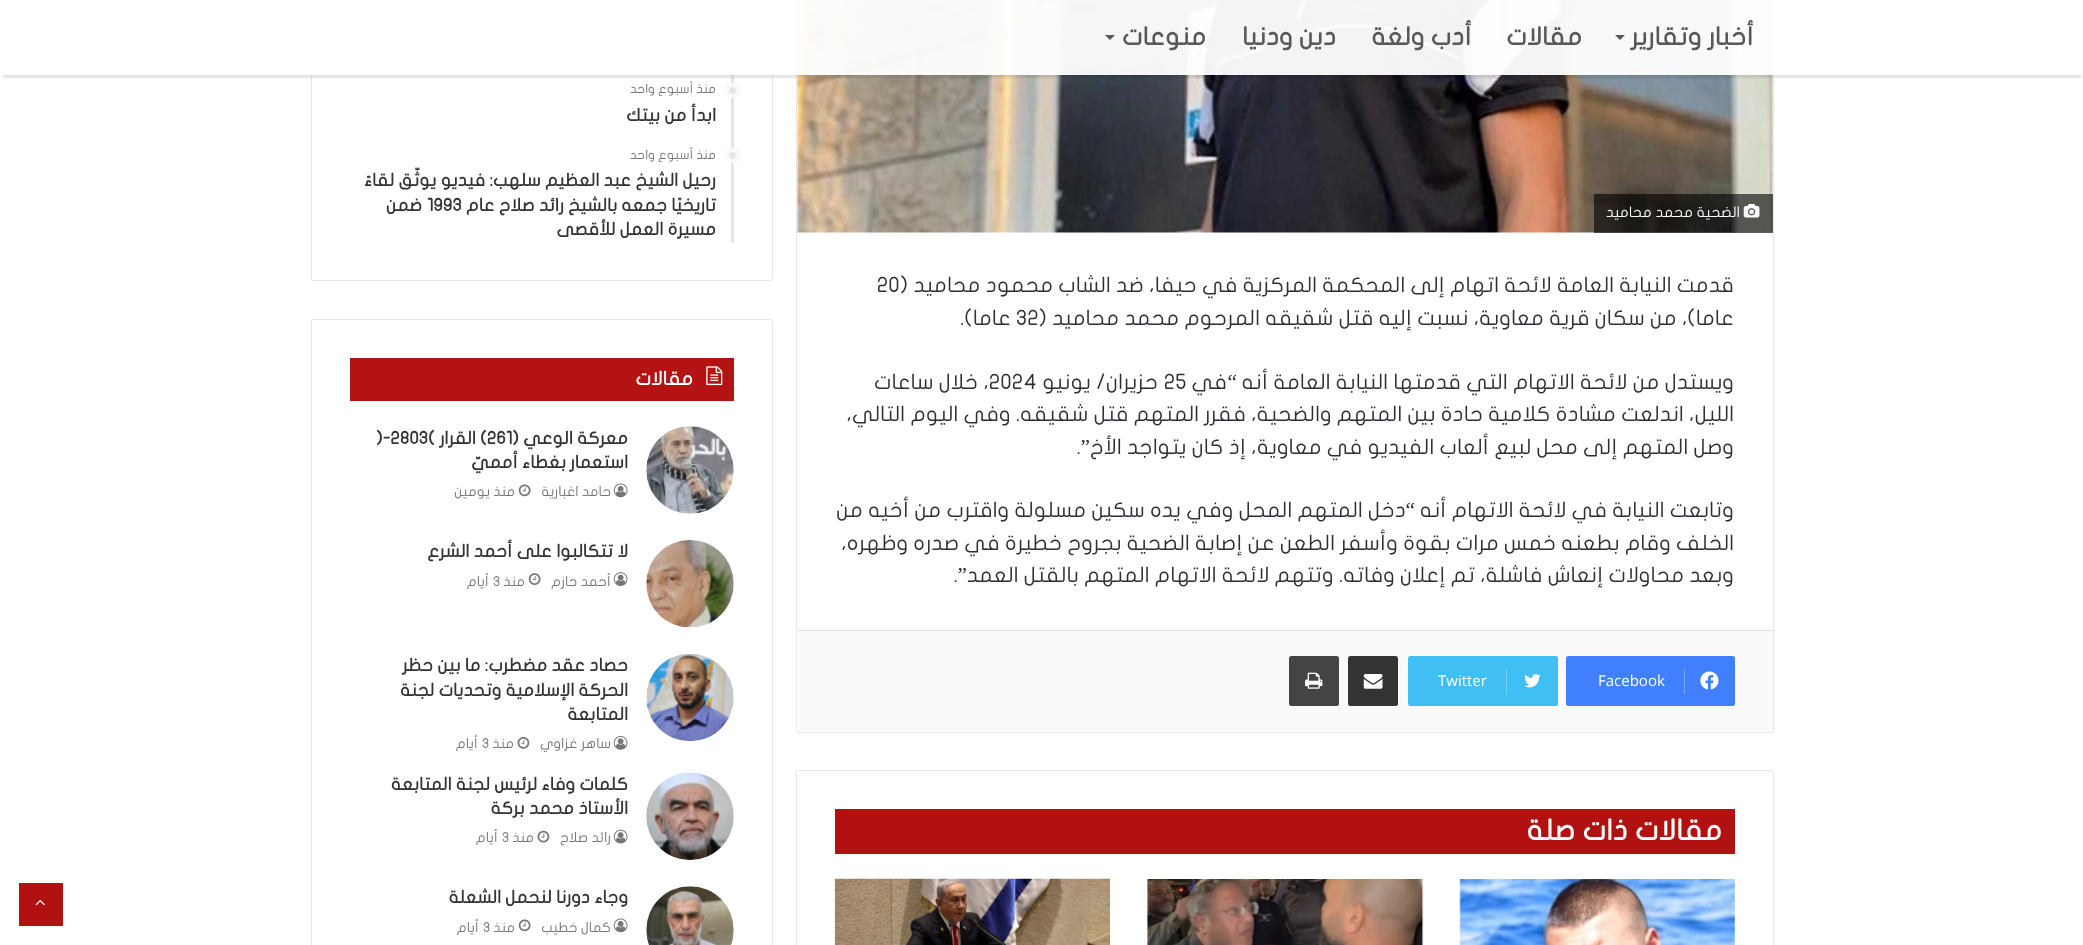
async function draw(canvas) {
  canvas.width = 2083
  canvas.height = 945
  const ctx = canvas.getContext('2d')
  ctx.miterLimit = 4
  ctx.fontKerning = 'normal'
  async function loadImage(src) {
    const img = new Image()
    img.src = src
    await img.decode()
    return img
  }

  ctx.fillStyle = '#fff'
  ctx.fillRect(0, 0, 2083, 945)
  ctx.beginPath()
  ctx.roundRect(796.5, -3.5, 977, 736, 2)
  ctx.strokeStyle = '#e6e6e6'
  ctx.stroke()
  ctx.drawImage(await loadImage('image0.png'), 797, 0, 976, 233)
  ctx.beginPath()
  ctx.roundRect(311.5, -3.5, 461, 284, 2)
  ctx.stroke()
  ctx.fillStyle = '#e6e6e6'
  ctx.fillRect(731, 0, 3, 243)
  ctx.beginPath()
  ctx.arc(732.5, 23.5, 7.5, 0, 2 * Math.PI)
  ctx.fill()
  ctx.beginPath()
  ctx.arc(732.5, 23.5, 5.5, 0, 2 * Math.PI)
  ctx.strokeStyle = '#ffffffcc'
  ctx.lineWidth = 4
  ctx.stroke()
  ctx.save()
  ctx.beginPath()
  ctx.rect(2, 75, 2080, 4)
  ctx.clip()
  ctx.fillStyle = '#0000001a'
  ctx.filter = 'blur(1px)'
  ctx.beginPath()
  ctx.rect(3, 8, 2078, 70)
  ctx.fill()
  ctx.filter = 'none'
  ctx.restore()
  ctx.fillStyle = '#fffffff2'
  ctx.fillRect(311, 0, 1463, 75)
  ctx.direction = 'rtl'
  ctx.font = 'bold 25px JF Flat'
  ctx.fillStyle = '#585858'
  ctx.fillText('أخبار وتقارير', 1754, 45)
  ctx.fillStyle = '#575858'
  ctx.beginPath()
  ctx.moveTo(1615, 35)
  ctx.lineTo(1625, 35)
  ctx.lineTo(1620, 40)
  ctx.closePath()
  ctx.fill()
  ctx.fillStyle = '#585858'
  ctx.fillText('مقالات', 1582, 45)
  ctx.fillText('أدب ولغة', 1472, 45)
  ctx.fillText('دين ودنيا', 1336, 45)
  ctx.fillText('منوعات', 1206, 45)
  ctx.fillStyle = '#575757'
  ctx.beginPath()
  ctx.moveTo(1105, 35)
  ctx.lineTo(1115, 35)
  ctx.lineTo(1110, 40)
  ctx.closePath()
  ctx.fill()
  ctx.fillStyle = '#00000099'
  ctx.fillRect(1594, 194, 179, 39)
  ctx.drawImage(await loadImage('image1.png'), 1743, 203, 17, 15)
  ctx.font = '14.6px JF Flat'
  ctx.fillStyle = '#fff'
  ctx.fillText('الضحية محمد محاميد', 1740, 217)
  ctx.font = '21.25px JF Flat'
  ctx.fillStyle = '#2c2f34'
  ctx.fillText('قدمت النيابة العامة لائحة اتهام إلى المحكمة المركزية في حيفا، ضد الشاب محمود محاميد (', 1734, 292)
  ctx.direction = 'ltr'
  ctx.fillText('20', 877, 292)
  ctx.direction = 'rtl'
  ctx.fillText('عاما)، من سكان قرية معاوية، نسبت إليه قتل شقيقه المرحوم محمد محاميد (', 1734, 325)
  ctx.direction = 'ltr'
  ctx.fillText('32', 1016, 325)
  ctx.direction = 'rtl'
  ctx.fillText('عاما).', 1011, 325)
  ctx.fillText('ويستدل من لائحة الاتهام التي قدمتها النيابة العامة أنه', 1734, 389)
  ctx.font = '21.25px Liberation Serif'
  ctx.fillText('“', 1237, 389)
  ctx.font = '21.25px JF Flat'
  ctx.fillText('في', 1227, 389)
  ctx.direction = 'ltr'
  ctx.fillText('25', 1164, 389)
  ctx.direction = 'rtl'
  ctx.fillText('حزيران/ يونيو', 1158, 389)
  ctx.direction = 'ltr'
  ctx.fillText('2024', 989, 389)
  ctx.direction = 'rtl'
  ctx.fillText('، خلال ساعات', 989, 389)
  ctx.fillText('الليل، اندلعت مشادة كلامية حادة بين المتهم والضحية، فقرر المتهم قتل شقيقه. وفي اليوم التالي،', 1734, 421)
  ctx.fillText('وصل المتهم إلى محل لبيع ألعاب الفيديو في معاوية، إذ كان يتواجد الأخ', 1734, 454)
  ctx.font = '21.25px Liberation Serif'
  ctx.fillText('”', 1090, 454)
  ctx.font = '21.25px JF Flat'
  ctx.fillText('.', 1081, 454)
  ctx.fillText('وتابعت النيابة في لائحة الاتهام أنه', 1734, 517)
  ctx.font = '21.25px Liberation Serif'
  ctx.fillText('“', 1415, 517)
  ctx.font = '21.25px JF Flat'
  ctx.fillText('دخل المتهم المحل وفي يده سكين مسلولة واقترب من أخيه من', 1406, 517)
  ctx.fillText('الخلف وقام بطعنه خمس مرات بقوة وأسفر الطعن عن إصابة الضحية بجروح خطيرة في صدره وظهره،', 1734, 550)
  ctx.fillText('وبعد محاولات إنعاش فاشلة، تم إعلان وفاته. وتتهم لائحة الاتهام المتهم بالقتل العمد', 1734, 582)
  ctx.font = '21.25px Liberation Serif'
  ctx.fillText('”', 967, 582)
  ctx.font = '21.25px JF Flat'
  ctx.fillText('.', 958, 582)
  ctx.fillStyle = '#fafafa'
  ctx.fillRect(798, 631, 975, 100)
  ctx.fillStyle = '#e1e1e1'
  ctx.fillRect(798, 630, 975, 1)
  ctx.fillStyle = '#4080ff'
  ctx.beginPath()
  ctx.roundRect(1566, 656, 169, 50, 2.5)
  ctx.fill()
  ctx.drawImage(await loadImage('image2.png'), 1700, 671, 19, 19)
  ctx.fillStyle = '#79a6ff'
  ctx.fillRect(1684, 669, 1, 25)
  ctx.direction = 'ltr'
  ctx.font = '15px Open Sans'
  ctx.fillStyle = '#fff'
  ctx.fillText('Facebook', 1598, 686)
  ctx.fillStyle = '#40bff5'
  ctx.beginPath()
  ctx.roundRect(1408, 656, 150, 50, 2.5)
  ctx.fill()
  ctx.drawImage(await loadImage('image3.png'), 1524, 674, 17, 14)
  ctx.fillStyle = '#79d2f8'
  ctx.fillRect(1506, 669, 1, 25)
  ctx.fillStyle = '#fff'
  ctx.fillText('Twitter', 1438, 686)
  ctx.fillStyle = '#333'
  ctx.beginPath()
  ctx.roundRect(1348, 656, 50, 50, 2.5)
  ctx.fill()
  ctx.drawImage(await loadImage('image4.png'), 1363, 674, 20, 15)
  ctx.fillStyle = '#444'
  ctx.beginPath()
  ctx.roundRect(1289, 656, 50, 50, 2.5)
  ctx.fill()
  ctx.drawImage(await loadImage('image5.png'), 1305, 672, 18, 17)
  ctx.beginPath()
  ctx.roundRect(796.5, 770.5, 977, 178, 2)
  ctx.strokeStyle = '#e6e6e6'
  ctx.lineWidth = 1
  ctx.stroke()
  ctx.fillStyle = '#b21111'
  ctx.fillRect(835, 809, 900, 45)
  ctx.direction = 'rtl'
  ctx.font = 'bold 28.75px JF Flat'
  ctx.fillStyle = '#fff'
  ctx.fillText('مقالات ذات صلة', 1722, 840)
  ctx.drawImage(await loadImage('image6.png'), 1459, 879, 276, 66)
  ctx.drawImage(await loadImage('image7.png'), 1147, 879, 277, 66)
  ctx.drawImage(await loadImage('image8.png'), 834, 878, 276, 67)
  ctx.fillStyle = '#e6e6e6'
  ctx.beginPath()
  ctx.arc(732.5, 90.5, 7.5, 0, 2 * Math.PI)
  ctx.fill()
  ctx.beginPath()
  ctx.arc(732.5, 90.5, 5.5, 0, 2 * Math.PI)
  ctx.strokeStyle = '#ffffffcc'
  ctx.lineWidth = 4
  ctx.stroke()
  ctx.font = '12.5px JF Flat'
  ctx.fillStyle = '#767676'
  ctx.fillText('منذ أسبوع واحد', 716, 93)
  ctx.font = 'bold 17.5px JF Flat'
  ctx.fillStyle = '#333'
  ctx.fillText('ابدأ من بيتك', 716, 121)
  ctx.fillStyle = '#e6e6e6'
  ctx.beginPath()
  ctx.arc(732.5, 155.5, 7.5, 0, 2 * Math.PI)
  ctx.fill()
  ctx.beginPath()
  ctx.arc(732.5, 155.5, 5.5, 0, 2 * Math.PI)
  ctx.stroke()
  ctx.font = '12.5px JF Flat'
  ctx.fillStyle = '#767676'
  ctx.fillText('منذ أسبوع واحد', 716, 159)
  ctx.font = 'bold 17.5px JF Flat'
  ctx.fillStyle = '#333'
  ctx.fillText('رحيل الشيخ عبد العظيم سلهب: فيديو يوثّق لقاءً', 716, 186)
  ctx.fillText('تاريخيًا جمعه بالشيخ رائد صلاح عام', 716, 211)
  ctx.direction = 'ltr'
  ctx.fillText('1993', 427, 211)
  ctx.direction = 'rtl'
  ctx.fillText('ضمن', 422, 211)
  ctx.fillText('مسيرة العمل للأقصى', 716, 235)
  ctx.beginPath()
  ctx.roundRect(311.5, 319.5, 461, 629, 2)
  ctx.strokeStyle = '#e6e6e6'
  ctx.lineWidth = 1
  ctx.stroke()
  ctx.fillStyle = '#b31313'
  ctx.fillRect(350, 358, 384, 43)
  ctx.drawImage(await loadImage('image9.png'), 706, 366, 17, 20)
  ctx.font = 'bold 19px JF Flat'
  ctx.fillStyle = '#fff'
  ctx.fillText('مقالات', 693, 385)
  ctx.drawImage(await loadImage('image10.png'), 646, 426, 88, 88)
  ctx.font = 'bold 17.5px JF Flat'
  ctx.fillStyle = '#333'
  ctx.fillText('معركة الوعي (', 628, 444)
  ctx.direction = 'ltr'
  ctx.fillText('261', 487, 444)
  ctx.direction = 'rtl'
  ctx.fillText(') القرار', 487, 444)
  ctx.direction = 'ltr'
  ctx.fillText(')-2803(', 376, 444)
  ctx.direction = 'rtl'
  ctx.fillText('استعمار', 628, 468)
  ctx.fillText('بغطاء أمميّ', 566, 468)
  ctx.drawImage(await loadImage('image11.png'), 613, 483, 15, 15)
  ctx.font = '13.75px JF Flat'
  ctx.fillStyle = '#767676'
  ctx.fillText('حامد اغبارية', 611, 496)
  ctx.drawImage(await loadImage('image12.png'), 518, 484, 13, 13)
  ctx.fillText('منذ يومين', 515, 496)
  ctx.drawImage(await loadImage('image13.png'), 646, 540, 88, 88)
  ctx.font = 'bold 17.5px JF Flat'
  ctx.fillStyle = '#333'
  ctx.fillText('لا تتكالبوا على أحمد الشرع', 628, 557)
  ctx.drawImage(await loadImage('image14.png'), 613, 572, 15, 14)
  ctx.font = '13.75px JF Flat'
  ctx.fillStyle = '#767676'
  ctx.fillText('أحمد حازم', 611, 586)
  ctx.drawImage(await loadImage('image15.png'), 528, 573, 13, 12)
  ctx.fillText('منذ', 525, 586)
  ctx.direction = 'ltr'
  ctx.fillText('3', 493, 586)
  ctx.direction = 'rtl'
  ctx.fillText('أيام', 489, 586)
  ctx.drawImage(await loadImage('image16.png'), 646, 654, 88, 88)
  ctx.font = 'bold 17.5px JF Flat'
  ctx.fillStyle = '#333'
  ctx.fillText('حصاد عقد مضطرب: ما بين حظر', 628, 671)
  ctx.fillText('الحركة الإسلامية وتحديات لجنة', 628, 696)
  ctx.fillText('المتابعة', 628, 720)
  ctx.drawImage(await loadImage('image17.png'), 613, 736, 15, 14)
  ctx.font = '13.75px JF Flat'
  ctx.fillStyle = '#767676'
  ctx.fillText('ساهر غزاوي', 611, 748)
  ctx.drawImage(await loadImage('image18.png'), 517, 737, 13, 12)
  ctx.fillText('منذ', 514, 748)
  ctx.direction = 'ltr'
  ctx.fillText('3', 482, 748)
  ctx.direction = 'rtl'
  ctx.fillText('أيام', 478, 748)
  ctx.drawImage(await loadImage('image19.png'), 646, 772, 88, 88)
  ctx.font = 'bold 17.5px JF Flat'
  ctx.fillStyle = '#333'
  ctx.fillText('كلمات وفاء لرئيس لجنة المتابعة', 628, 790)
  ctx.fillText('الأستاذ محمد بركة', 628, 814)
  ctx.drawImage(await loadImage('image20.png'), 613, 829, 15, 15)
  ctx.font = '13.75px JF Flat'
  ctx.fillStyle = '#767676'
  ctx.fillText('رائد صلاح', 611, 842)
  ctx.drawImage(await loadImage('image21.png'), 537, 830, 13, 13)
  ctx.fillText('منذ', 534, 842)
  ctx.direction = 'ltr'
  ctx.fillText('3', 502, 842)
  ctx.direction = 'rtl'
  ctx.fillText('أيام', 498, 842)
  ctx.drawImage(await loadImage('image22.png'), 646, 886, 88, 59)
  ctx.font = 'bold 17.5px JF Flat'
  ctx.fillStyle = '#333'
  ctx.fillText('وجاء دورنا لنحمل الشعلة', 628, 903)
  ctx.drawImage(await loadImage('image11.png'), 613, 918, 15, 15)
  ctx.font = '13.75px JF Flat'
  ctx.fillStyle = '#767676'
  ctx.fillText('كمال خطيب', 611, 932)
  ctx.drawImage(await loadImage('image12.png'), 518, 919, 13, 13)
  ctx.fillText('منذ', 515, 932)
  ctx.direction = 'ltr'
  ctx.fillText('3', 483, 932)
  ctx.direction = 'rtl'
  ctx.fillText('أيام', 479, 932)
  ctx.fillStyle = '#b21111'
  ctx.fillRect(19, 883, 44, 43)
  ctx.drawImage(await loadImage('image23.png'), 35, 899, 10, 7)
}

draw(document.querySelector('canvas'))
